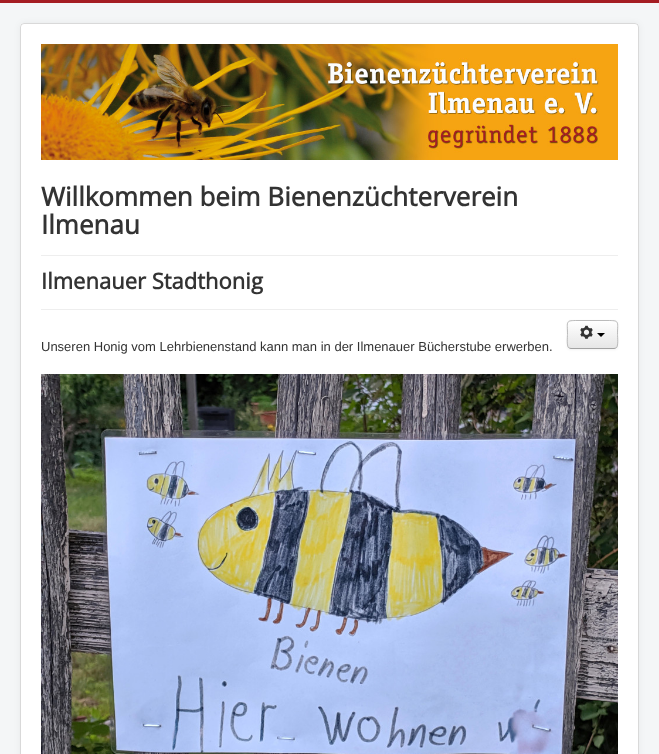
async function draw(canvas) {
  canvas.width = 659
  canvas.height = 754
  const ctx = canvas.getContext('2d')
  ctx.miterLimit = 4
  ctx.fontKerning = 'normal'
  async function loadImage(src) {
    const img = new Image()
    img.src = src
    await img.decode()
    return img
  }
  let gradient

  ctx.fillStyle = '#f4f6f7'
  ctx.fillRect(0, 0, 659, 754)
  ctx.fillStyle = '#a41d23'
  ctx.fillRect(0, 0, 659, 3)
  ctx.fillStyle = '#0000000d'
  ctx.filter = 'blur(3px)'
  ctx.beginPath()
  ctx.roundRect(20, 23, 619, 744, 4)
  ctx.fill()
  ctx.filter = 'none'
  ctx.fillStyle = '#fff'
  ctx.beginPath()
  ctx.roundRect(20, 23, 619, 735, 4)
  ctx.fill()
  ctx.beginPath()
  ctx.roundRect(20.5, 23.5, 618, 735, 3.5)
  ctx.strokeStyle = '#00000026'
  ctx.stroke()
  ctx.drawImage(await loadImage('image0.png'), 41, 44, 577, 116)
  ctx.fillStyle = '#eee'
  ctx.fillRect(41, 255, 577, 1)
  ctx.font = 'bold 26px Open Sans'
  ctx.fillStyle = '#333'
  ctx.fillText('Willkommen beim Bienenzüchterverein', 41, 206)
  ctx.fillText('Ilmenau', 41, 234)
  ctx.fillStyle = '#eee'
  ctx.fillRect(41, 309, 577, 1)
  ctx.font = 'bold 22px Open Sans'
  ctx.fillStyle = '#333'
  ctx.fillText('Ilmenauer Stadthonig', 41, 289)
  ctx.font = '13px Liberation Sans'
  ctx.fillText('Unseren Honig vom Lehrbienenstand kann man in der Ilmenauer Bücherstube erwerben.', 41, 351)
  ctx.drawImage(await loadImage('image1.png'), 41, 374, 577, 380)
  ctx.fillStyle = '#0000000d'
  ctx.filter = 'blur(1px)'
  ctx.beginPath()
  ctx.roundRect(567, 321, 51, 29, 4)
  ctx.fill()
  ctx.filter = 'none'
  ctx.fillStyle = '#f5f5f5'
  ctx.beginPath()
  ctx.roundRect(567, 320, 51, 29, 4)
  ctx.fill()
  ctx.save()
  ctx.beginPath()
  ctx.roundRect(567, 320, 51, 29, 4)
  ctx.clip()
  gradient = ctx.createLinearGradient(593, 321, 593, 348)
  gradient.addColorStop(0, '#fff')
  gradient.addColorStop(1, '#e6e6e6')
  ctx.fillStyle = gradient
  ctx.fillRect(567, 321, 51, 27)
  ctx.restore()
  ctx.fillStyle = '#fff'
  ctx.beginPath()
  ctx.moveTo(571, 322)
  ctx.lineTo(614, 322)
  ctx.bezierCurveTo(616, 322, 617, 323, 617, 325)
  ctx.bezierCurveTo(617, 319, 611, 321, 607, 321)
  ctx.lineTo(578, 321)
  ctx.bezierCurveTo(574, 321, 568, 319, 568, 325)
  ctx.bezierCurveTo(568, 323, 569, 322, 571, 322)
  ctx.closePath()
  ctx.fill()
  ctx.beginPath()
  ctx.moveTo(616.5, 347.5)
  ctx.bezierCurveTo(616, 348, 615, 348.5, 614, 348.5)
  ctx.lineTo(571, 348.5)
  ctx.bezierCurveTo(570, 348.5, 569, 348, 568.5, 347.5)
  ctx.strokeStyle = '#a2a2a2'
  ctx.stroke()
  ctx.beginPath()
  ctx.moveTo(568.5, 347.5)
  ctx.bezierCurveTo(566.5, 345.5, 567.5, 337, 567.5, 334.5)
  ctx.bezierCurveTo(567.5, 321, 565, 320.5, 578, 320.5)
  ctx.lineTo(607, 320.5)
  ctx.bezierCurveTo(620, 320.5, 617.5, 321, 617.5, 334.5)
  ctx.bezierCurveTo(617.5, 337, 618.5, 345.5, 616.5, 347.5)
  ctx.strokeStyle = '#bbb'
  ctx.stroke()
  ctx.drawImage(await loadImage('image2.png'), 580, 325, 13, 14)
  ctx.fillStyle = '#000'
  ctx.beginPath()
  ctx.moveTo(597, 333)
  ctx.lineTo(605, 333)
  ctx.lineTo(601, 337)
  ctx.closePath()
  ctx.fill()
}

draw(document.querySelector('canvas'))
